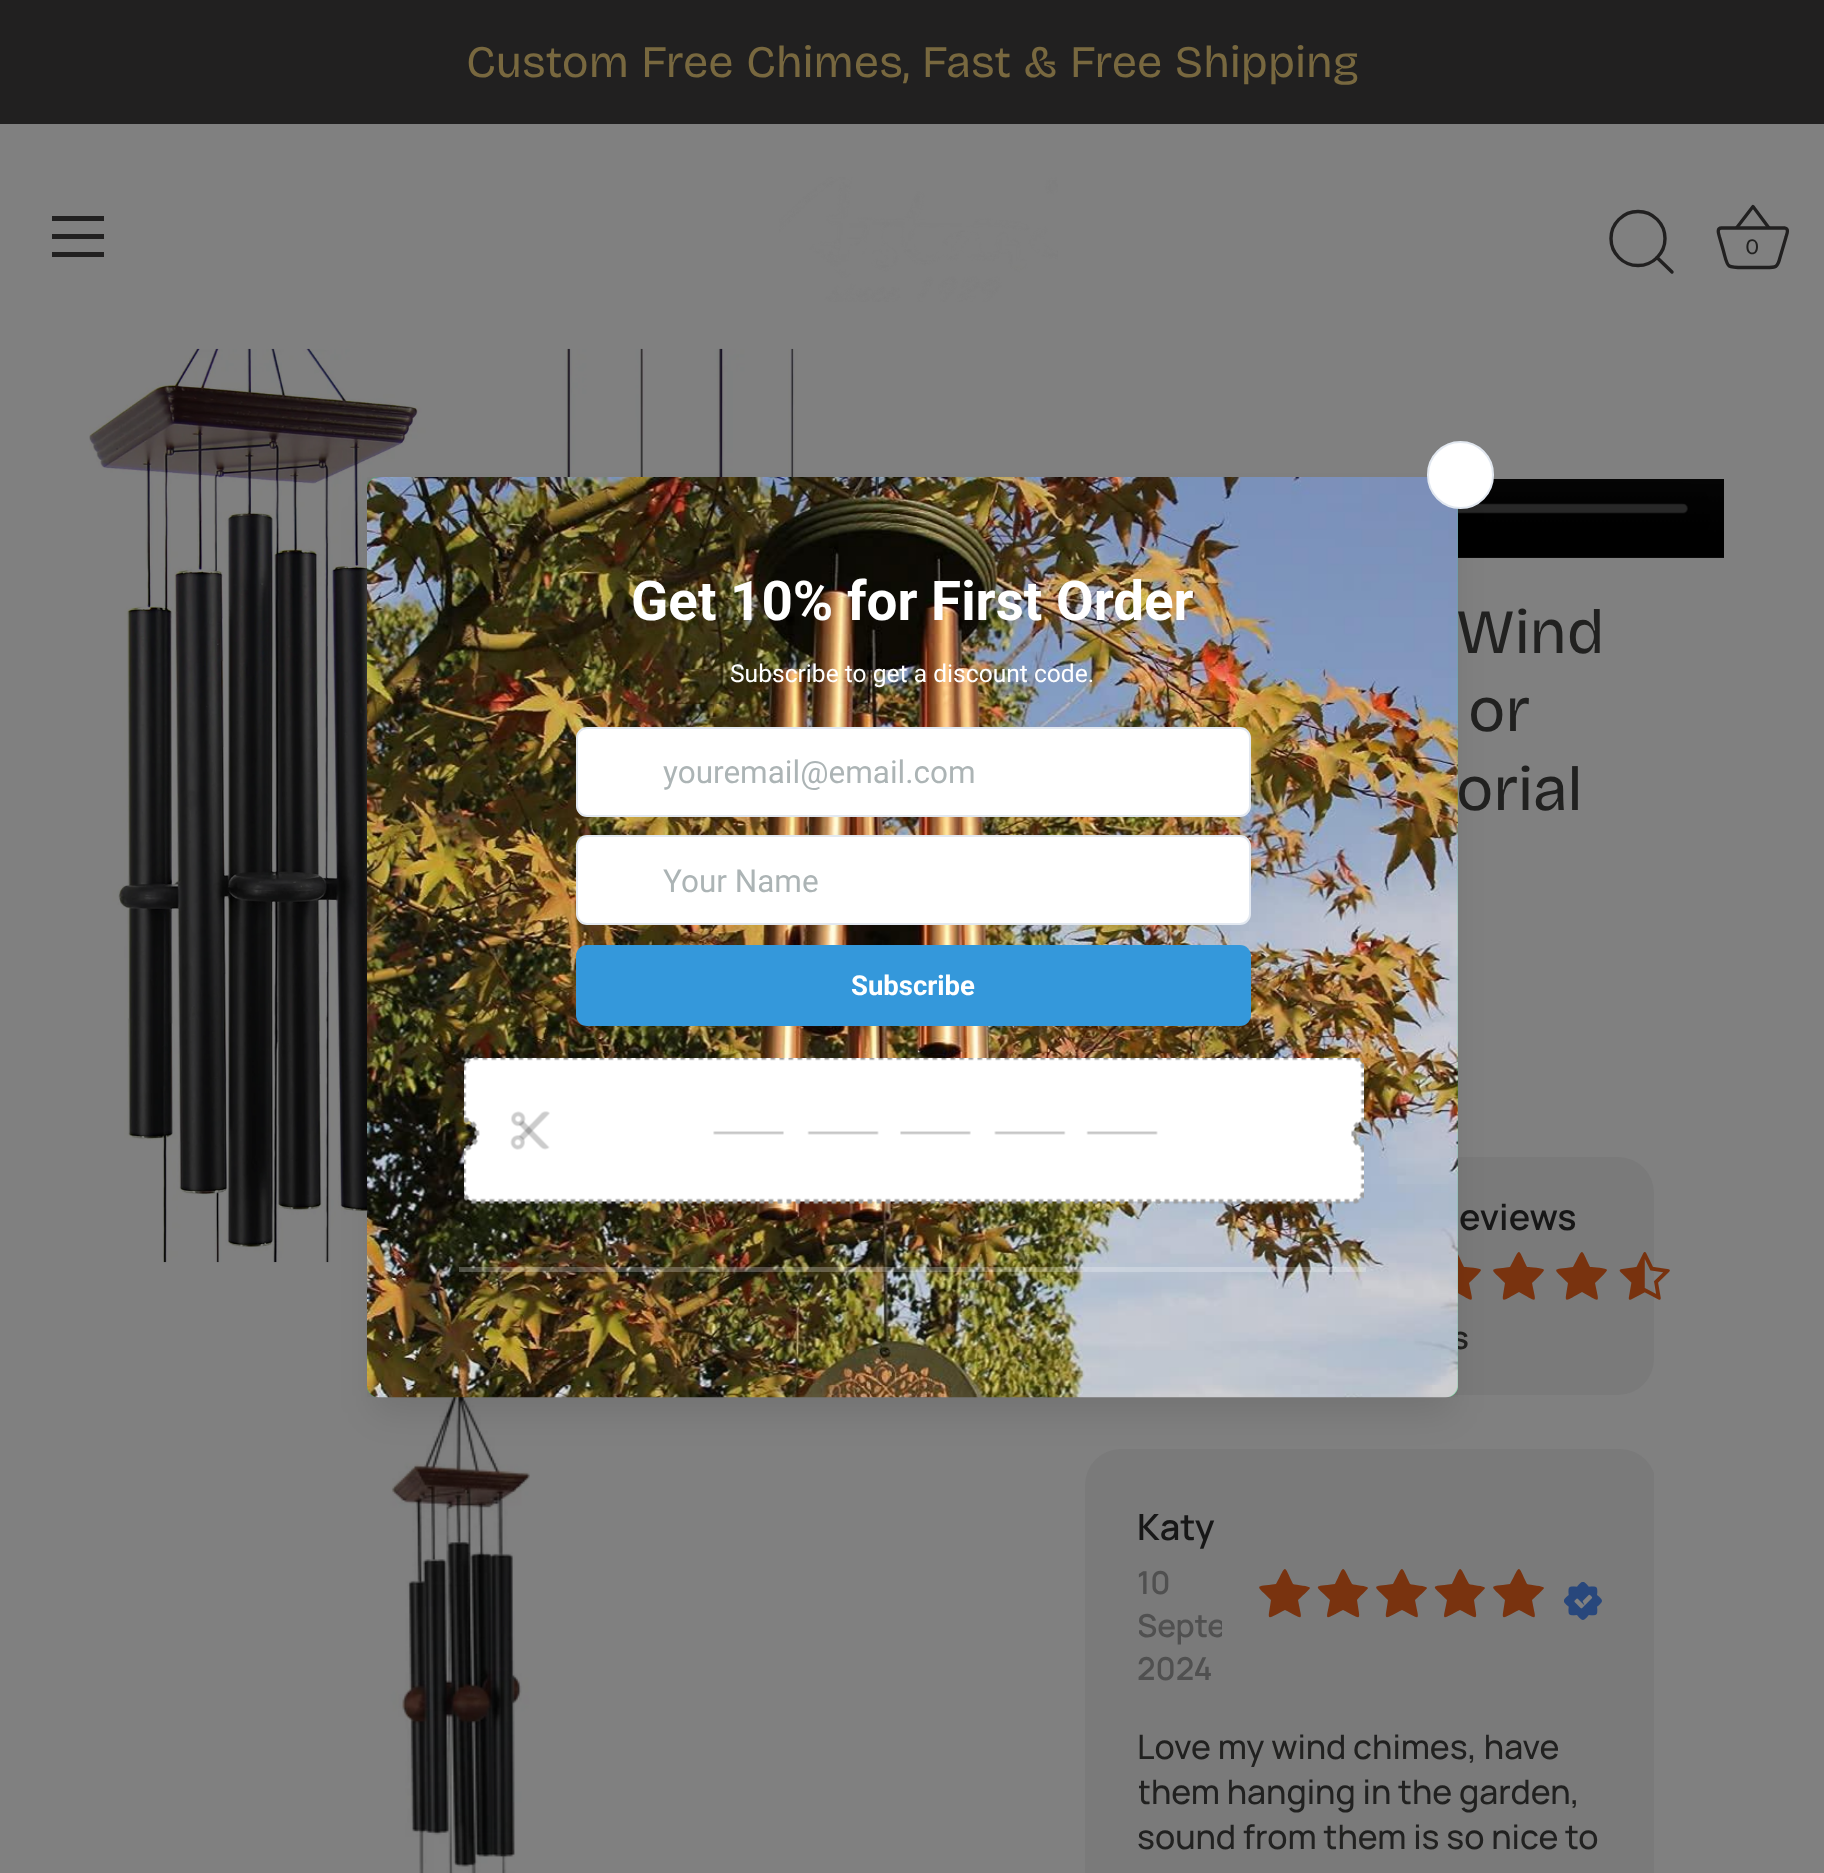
async function draw(canvas) {
  canvas.width = 1824
  canvas.height = 1873
  const ctx = canvas.getContext('2d')
  ctx.miterLimit = 4
  ctx.fontKerning = 'normal'
  async function loadImage(src) {
    const img = new Image()
    img.src = src
    await img.decode()
    return img
  }

  ctx.fillStyle = '#808080'
  ctx.fillRect(0, 0, 1824, 1873)
  ctx.fillStyle = '#212020'
  ctx.fillRect(0, 0, 1824, 124)
  ctx.wordSpacing = '1.25px'
  ctx.font = '45px "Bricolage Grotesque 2"'
  ctx.fillStyle = '#78683f'
  ctx.fillText('Custom Free Chimes, Fast & Free Shipping', 466, 77)
  ctx.fillStyle = '#212020'
  ctx.fillRect(52, 216, 52, 5)
  ctx.fillRect(52, 234, 52, 5)
  ctx.fillRect(52, 252, 52, 5)
  ctx.drawImage(await loadImage('image0.png'), 779, 177, 279, 125)
  ctx.beginPath()
  ctx.arc(1638, 238.5, 27, 0, 2 * Math.PI)
  ctx.strokeStyle = '#212020'
  ctx.lineWidth = 3.4
  ctx.stroke()
  ctx.beginPath()
  ctx.moveTo(1672, 272)
  ctx.lineTo(1657, 257.5)
  ctx.lineCap = 'round'
  ctx.lineJoin = 'round'
  ctx.stroke()
  ctx.beginPath()
  ctx.moveTo(1721.5, 228)
  ctx.bezierCurveTo(1716, 228, 1719, 235, 1719.5, 237)
  ctx.lineTo(1722.5, 247.5)
  ctx.bezierCurveTo(1728.5, 268.5, 1724.5, 267.5, 1746.5, 267.5)
  ctx.lineTo(1765.5, 267.5)
  ctx.bezierCurveTo(1776.5, 267.5, 1777.5, 267.5, 1780, 257.5)
  ctx.lineTo(1786, 237)
  ctx.bezierCurveTo(1786.5, 234.5, 1789.5, 229, 1785, 228)
  ctx.lineTo(1721.5, 228)
  ctx.lineWidth = 3.3
  ctx.lineCap = 'butt'
  ctx.stroke()
  ctx.beginPath()
  ctx.moveTo(1736.5, 228)
  ctx.lineTo(1753, 206.5)
  ctx.lineTo(1769, 228)
  ctx.stroke()
  ctx.wordSpacing = '0px'
  ctx.font = '22px "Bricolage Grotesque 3"'
  ctx.fillStyle = '#212120'
  ctx.fillText('0', 1745, 254)
  ctx.drawImage(await loadImage('image3.png'), 89, 348, 709, 915)
  ctx.drawImage(await loadImage('image4.png'), 163, 1262, 367, 611)
  ctx.drawImage(await loadImage('image5.png'), 1458, 479, 266, 79)
  ctx.fillStyle = '#7a7a7a'
  ctx.beginPath()
  ctx.roundRect(1085, 1157, 569, 238, 36)
  ctx.fill()
  ctx.fillStyle = '#79330f'
  ctx.beginPath()
  ctx.moveTo(1481, 1270)
  ctx.bezierCurveTo(1481, 1272, 1471, 1281, 1469, 1283)
  ctx.bezierCurveTo(1473, 1304, 1476, 1303, 1456, 1292)
  ctx.bezierCurveTo(1436, 1303, 1439, 1304, 1442, 1283)
  ctx.bezierCurveTo(1426, 1267, 1425, 1270, 1447, 1267)
  ctx.bezierCurveTo(1458, 1247, 1454, 1247, 1464, 1267)
  ctx.bezierCurveTo(1467, 1267, 1481, 1268, 1481, 1270)
  ctx.closePath()
  ctx.fill()
  ctx.beginPath()
  ctx.moveTo(1544, 1270)
  ctx.bezierCurveTo(1544, 1272, 1534, 1281, 1532, 1283)
  ctx.bezierCurveTo(1536, 1304, 1539, 1303, 1519, 1292)
  ctx.bezierCurveTo(1499, 1303, 1502, 1304, 1505, 1283)
  ctx.bezierCurveTo(1489, 1267, 1488, 1270, 1510, 1267)
  ctx.bezierCurveTo(1521, 1247, 1517, 1247, 1527, 1267)
  ctx.bezierCurveTo(1530, 1267, 1544, 1268, 1544, 1270)
  ctx.closePath()
  ctx.fill()
  ctx.save()
  ctx.beginPath()
  ctx.rect(1085, 1449, 569, 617)
  ctx.clip()
  ctx.fillStyle = '#7a7a7a'
  ctx.beginPath()
  ctx.roundRect(1085, 1449, 571, 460, 36)
  ctx.fill()
  ctx.restore()
  ctx.fillStyle = '#0000001a'
  ctx.filter = 'blur(17px)'
  ctx.beginPath()
  ctx.roundRect(374, 506, 1077, 907, 6)
  ctx.fill()
  ctx.filter = 'none'
  ctx.save()
  ctx.beginPath()
  ctx.rect(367, 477, 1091, 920)
  ctx.clip()
  ctx.fillStyle = '#0000001f'
  ctx.filter = 'blur(22.5px)'
  ctx.beginPath()
  ctx.roundRect(374, 484, 1077, 907, 6)
  ctx.fill()
  ctx.filter = 'none'
  ctx.restore()
  ctx.wordSpacing = '5px'
  ctx.font = '63px Bricolage Grotesque'
  ctx.fillStyle = '#212120'
  ctx.fillText('Wind', 1456, 653)
  ctx.wordSpacing = '0px'
  ctx.font = '600 31.5px Manrope'
  ctx.fillText('s', 1452, 1349)
  ctx.fillStyle = '#2ecc71'
  ctx.beginPath()
  ctx.roundRect(367, 477, 1091, 920, 11)
  ctx.fill()
  ctx.drawImage(await loadImage('image1.png'), 367, 477, 1091, 921)
  ctx.fillStyle = '#fff'
  ctx.beginPath()
  ctx.roundRect(1428, 442, 65, 66, 32.5)
  ctx.fill()
  ctx.strokeStyle = '#e2e8f0'
  ctx.lineWidth = 2
  ctx.lineJoin = 'miter'
  ctx.stroke()
  ctx.font = 'bold 54.75px Roboto'
  ctx.fillText('Get 10% for First Order', 631, 620)
  ctx.font = '24.6px Roboto'
  ctx.fillText('Subscribe to get a discount code.', 730, 682)
  ctx.beginPath()
  ctx.roundRect(577, 728, 673, 88, 10)
  ctx.fill()
  ctx.stroke()
  ctx.font = '31.5px Roboto'
  ctx.fillStyle = '#acb4b5'
  ctx.fillText('youremail@email.com', 663, 783)
  ctx.fillStyle = '#fff'
  ctx.beginPath()
  ctx.roundRect(577, 836, 673, 88, 10)
  ctx.fill()
  ctx.stroke()
  ctx.fillStyle = '#acb4b5'
  ctx.fillText('Your Name', 663, 892)
  ctx.fillStyle = '#3498db'
  ctx.beginPath()
  ctx.roundRect(576, 945, 675, 81, 11)
  ctx.fill()
  ctx.font = 'bold 27.5px Roboto'
  ctx.fillStyle = '#fff'
  ctx.fillText('Subscribe', 851, 995)
  ctx.drawImage(await loadImage('image2.png'), 464, 1058, 900, 147)
  ctx.fillStyle = '#ffffff40'
  ctx.fillRect(459, 1267, 907, 5)
  ctx.wordSpacing = '8px'
  ctx.font = '63px Bricolage Grotesque'
  ctx.fillStyle = '#212120'
  ctx.fillText('or', 1468, 731)
  ctx.wordSpacing = '5px'
  ctx.fillText('orial', 1456, 810)
  ctx.wordSpacing = '0px'
  ctx.font = '600 36px Manrope'
  ctx.fillStyle = '#171717'
  ctx.fillText('eviews', 1459, 1230)
  ctx.fillStyle = '#79330f'
  ctx.beginPath()
  ctx.moveTo(1607, 1270)
  ctx.bezierCurveTo(1607, 1272, 1597, 1281, 1595, 1283)
  ctx.bezierCurveTo(1599, 1304, 1602, 1303, 1582, 1292)
  ctx.bezierCurveTo(1562, 1303, 1565, 1304, 1568, 1283)
  ctx.bezierCurveTo(1552, 1267, 1551, 1270, 1573, 1267)
  ctx.bezierCurveTo(1584, 1247, 1580, 1247, 1590, 1267)
  ctx.bezierCurveTo(1593, 1267, 1607, 1268, 1607, 1270)
  ctx.closePath()
  ctx.fill()
  ctx.drawImage(await loadImage('image6.png'), 1619, 1252, 51, 48)
  ctx.fillStyle = '#171717'
  ctx.fillText('Katy', 1137, 1540)
  ctx.font = '600 31.5px Manrope'
  ctx.fillStyle = '#505050'
  ctx.fillText('10', 1137, 1594)
  ctx.save()
  ctx.beginPath()
  ctx.rect(1139, 1503, 83, 187)
  ctx.clip()
  ctx.fillText('Septe', 1137, 1637)
  ctx.restore()
  ctx.fillText('2024', 1137, 1680)
  ctx.fillStyle = '#79330f'
  ctx.beginPath()
  ctx.moveTo(1310, 1588)
  ctx.bezierCurveTo(1310, 1589, 1300, 1598, 1298, 1600)
  ctx.bezierCurveTo(1302, 1622, 1305, 1620, 1285, 1610)
  ctx.bezierCurveTo(1265, 1620, 1268, 1622, 1271, 1600)
  ctx.bezierCurveTo(1255, 1584, 1254, 1587, 1276, 1584)
  ctx.bezierCurveTo(1287, 1564, 1283, 1564, 1293, 1584)
  ctx.bezierCurveTo(1296, 1585, 1310, 1586, 1310, 1588)
  ctx.closePath()
  ctx.fill()
  ctx.beginPath()
  ctx.moveTo(1368, 1588)
  ctx.bezierCurveTo(1368, 1589, 1358, 1598, 1357, 1600)
  ctx.bezierCurveTo(1360, 1622, 1363, 1620, 1343, 1610)
  ctx.bezierCurveTo(1323, 1620, 1326, 1622, 1330, 1600)
  ctx.bezierCurveTo(1314, 1584, 1312, 1587, 1335, 1584)
  ctx.bezierCurveTo(1345, 1564, 1341, 1564, 1352, 1584)
  ctx.bezierCurveTo(1354, 1585, 1368, 1586, 1368, 1588)
  ctx.closePath()
  ctx.fill()
  ctx.beginPath()
  ctx.moveTo(1427, 1588)
  ctx.bezierCurveTo(1427, 1589, 1417, 1598, 1415, 1600)
  ctx.bezierCurveTo(1419, 1622, 1422, 1620, 1402, 1610)
  ctx.bezierCurveTo(1382, 1620, 1385, 1622, 1388, 1600)
  ctx.bezierCurveTo(1372, 1584, 1371, 1587, 1393, 1584)
  ctx.bezierCurveTo(1404, 1564, 1400, 1564, 1410, 1584)
  ctx.bezierCurveTo(1413, 1585, 1427, 1586, 1427, 1588)
  ctx.closePath()
  ctx.fill()
  ctx.beginPath()
  ctx.moveTo(1485, 1588)
  ctx.bezierCurveTo(1485, 1589, 1475, 1598, 1474, 1600)
  ctx.bezierCurveTo(1477, 1622, 1480, 1620, 1460, 1610)
  ctx.bezierCurveTo(1440, 1620, 1443, 1622, 1447, 1600)
  ctx.bezierCurveTo(1431, 1584, 1429, 1587, 1452, 1584)
  ctx.bezierCurveTo(1462, 1564, 1458, 1564, 1469, 1584)
  ctx.bezierCurveTo(1471, 1585, 1485, 1586, 1485, 1588)
  ctx.closePath()
  ctx.fill()
  ctx.beginPath()
  ctx.moveTo(1544, 1588)
  ctx.bezierCurveTo(1544, 1589, 1534, 1598, 1532, 1600)
  ctx.bezierCurveTo(1536, 1622, 1539, 1620, 1519, 1610)
  ctx.bezierCurveTo(1499, 1620, 1502, 1622, 1505, 1600)
  ctx.bezierCurveTo(1489, 1584, 1488, 1587, 1510, 1584)
  ctx.bezierCurveTo(1521, 1564, 1517, 1564, 1527, 1584)
  ctx.bezierCurveTo(1530, 1585, 1544, 1586, 1544, 1588)
  ctx.closePath()
  ctx.fill()
  ctx.drawImage(await loadImage('image7.png'), 1564, 1582, 38, 38)
  ctx.font = '500 33.75px Manrope'
  ctx.fillStyle = '#212120'
  ctx.fillText('Love my wind chimes, have', 1137, 1759)
  ctx.save()
  ctx.beginPath()
  ctx.rect(1139, 1726, 463, 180)
  ctx.clip()
  ctx.fillText('them hanging in the garden,', 1137, 1804)
  ctx.restore()
  ctx.fillText('sound from them is so nice to', 1137, 1849)
}

draw(document.querySelector('canvas'))
